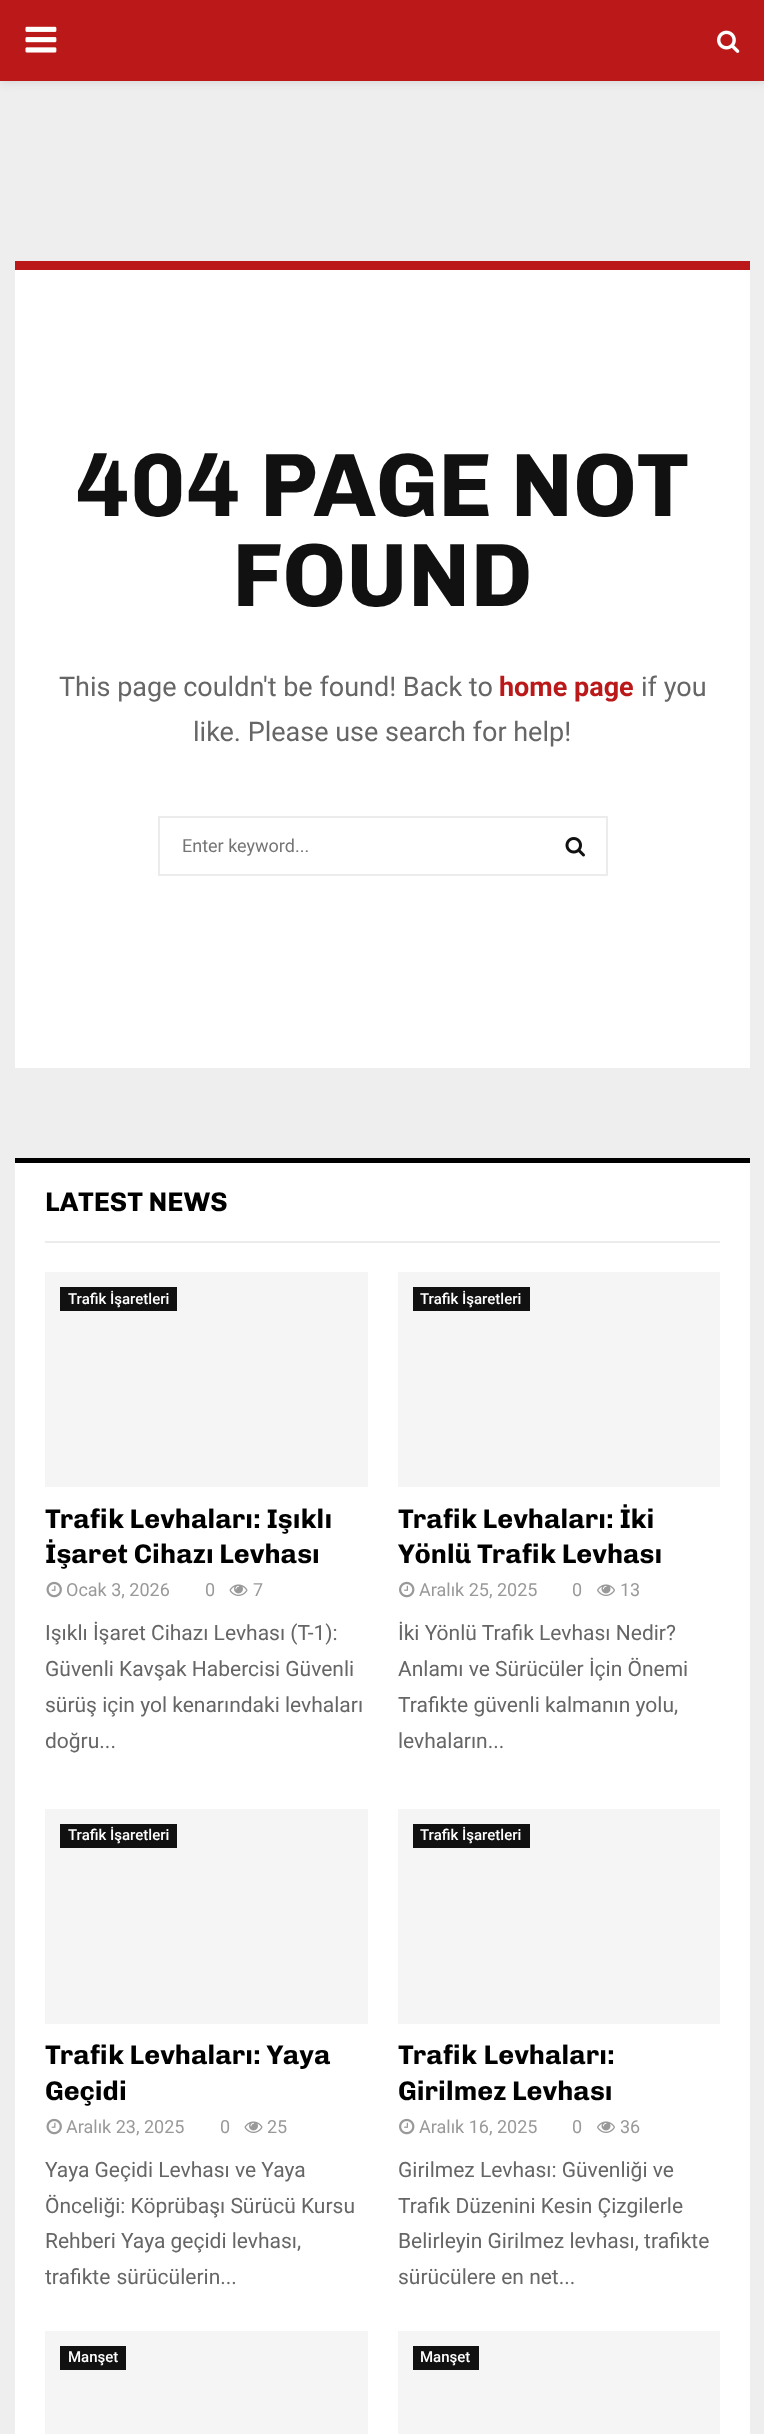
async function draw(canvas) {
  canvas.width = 764
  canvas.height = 2434
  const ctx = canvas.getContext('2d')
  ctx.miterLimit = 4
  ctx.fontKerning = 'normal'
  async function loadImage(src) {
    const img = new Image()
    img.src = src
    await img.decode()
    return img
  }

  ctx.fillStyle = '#eee'
  ctx.fillRect(0, 0, 764, 2434)
  ctx.fillStyle = '#bebebe75'
  ctx.filter = 'blur(4px)'
  ctx.beginPath()
  ctx.rect(0, 2, 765, 81)
  ctx.fill()
  ctx.filter = 'none'
  ctx.fillStyle = '#bb1919'
  ctx.fillRect(0, 0, 764, 81)
  ctx.drawImage(await loadImage('image0.png'), 25, 26, 32, 27)
  ctx.drawImage(await loadImage('image1.png'), 717, 30, 23, 23)
  ctx.fillStyle = '#fff'
  ctx.fillRect(15, 270, 735, 798)
  ctx.fillStyle = '#bb1919'
  ctx.fillRect(15, 261, 735, 9)
  ctx.font = 'bold 90px Chivo'
  ctx.fillStyle = '#111'
  ctx.fillText('404 PAGE NOT', 75, 516)
  ctx.fillText('FOUND', 232, 606)
  ctx.font = '27px Roboto'
  ctx.fillStyle = '#666'
  ctx.fillText('This page couldn\'t be found! Back to', 59, 696)
  ctx.font = 'bold 27px Roboto'
  ctx.fillStyle = '#bb1919'
  ctx.fillText('home page', 499, 696)
  ctx.font = '27px Roboto'
  ctx.fillStyle = '#666'
  ctx.fillText('if you', 641, 696)
  ctx.fillText('like. Please use search for help!', 193, 741)
  ctx.strokeStyle = '#ececec'
  ctx.lineWidth = 2
  ctx.strokeRect(159, 817, 448, 58)
  ctx.font = '18px Roboto'
  ctx.fillStyle = '#757575'
  ctx.fillText('Enter keyword...', 182, 852)
  ctx.drawImage(await loadImage('image2.png'), 565, 837, 20, 20)
  ctx.fillStyle = '#fff'
  ctx.fillRect(15, 1163, 735, 1271)
  ctx.fillStyle = '#ececec'
  ctx.fillRect(45, 1241, 675, 2)
  ctx.fillStyle = '#000'
  ctx.fillRect(15, 1158, 735, 5)
  ctx.font = 'bold 27px Chivo'
  ctx.fillText('LATEST NEWS', 45, 1211)
  ctx.fillStyle = '#f5f5f5'
  ctx.fillRect(45, 1272, 323, 215)
  ctx.fillStyle = '#111'
  ctx.fillRect(60, 1287, 117, 24)
  ctx.font = '500 15px Roboto'
  ctx.fillStyle = '#fff'
  ctx.fillText('Trafik İşaretleri', 68, 1304)
  ctx.font = 'bold 27px Chivo'
  ctx.fillStyle = '#000'
  ctx.fillText('Trafik Levhaları: Işıklı', 45, 1528)
  ctx.fillText('İşaret Cihazı Levhası', 45, 1563)
  ctx.drawImage(await loadImage('image3.png'), 46, 1581, 16, 17)
  ctx.font = '18px Roboto'
  ctx.fillStyle = '#999'
  ctx.fillText('Ocak 3, 2026', 66, 1596)
  ctx.fillText('0', 205, 1596)
  ctx.drawImage(await loadImage('image4.png'), 229, 1584, 19, 12)
  ctx.fillText('7', 253, 1596)
  ctx.font = '21px Roboto'
  ctx.fillStyle = '#666'
  ctx.fillText('Işıklı İşaret Cihazı Levhası (T-1):', 45, 1640)
  ctx.fillText('Güvenli Kavşak Habercisi Güvenli', 45, 1676)
  ctx.fillText('sürüş için yol kenarındaki levhaları', 45, 1712)
  ctx.fillText('doğru...', 45, 1748)
  ctx.fillStyle = '#f5f5f5'
  ctx.fillRect(398, 1272, 322, 215)
  ctx.fillStyle = '#111'
  ctx.fillRect(413, 1287, 117, 24)
  ctx.font = '500 15px Roboto'
  ctx.fillStyle = '#fff'
  ctx.fillText('Trafik İşaretleri', 420, 1304)
  ctx.font = 'bold 27px Chivo'
  ctx.fillStyle = '#000'
  ctx.fillText('Trafik Levhaları: İki', 398, 1528)
  ctx.fillText('Yönlü Trafik Levhası', 398, 1563)
  ctx.drawImage(await loadImage('image5.png'), 399, 1581, 16, 17)
  ctx.font = '18px Roboto'
  ctx.fillStyle = '#999'
  ctx.fillText('Aralık 25, 2025', 419, 1596)
  ctx.fillText('0', 572, 1596)
  ctx.drawImage(await loadImage('image6.png'), 597, 1584, 18, 12)
  ctx.fillText('13', 620, 1596)
  ctx.font = '21px Roboto'
  ctx.fillStyle = '#666'
  ctx.fillText('İki Yönlü Trafik Levhası Nedir?', 398, 1640)
  ctx.fillText('Anlamı ve Sürücüler İçin Önemi', 398, 1676)
  ctx.fillText('Trafikte güvenli kalmanın yolu,', 398, 1712)
  ctx.fillText('levhaların...', 398, 1748)
  ctx.fillStyle = '#f5f5f5'
  ctx.fillRect(45, 1809, 323, 215)
  ctx.fillStyle = '#111'
  ctx.fillRect(60, 1824, 117, 24)
  ctx.font = '500 15px Roboto'
  ctx.fillStyle = '#fff'
  ctx.fillText('Trafik İşaretleri', 68, 1840)
  ctx.font = 'bold 27px Chivo'
  ctx.fillStyle = '#000'
  ctx.fillText('Trafik Levhaları: Yaya', 45, 2064)
  ctx.fillText('Geçidi', 45, 2100)
  ctx.drawImage(await loadImage('image3.png'), 46, 2118, 16, 17)
  ctx.font = '18px Roboto'
  ctx.fillStyle = '#999'
  ctx.fillText('Aralık 23, 2025', 66, 2133)
  ctx.fillText('0', 220, 2133)
  ctx.drawImage(await loadImage('image4.png'), 244, 2121, 19, 12)
  ctx.fillText('25', 267, 2133)
  ctx.font = '21px Roboto'
  ctx.fillStyle = '#666'
  ctx.fillText('Yaya Geçidi Levhası ve Yaya', 45, 2177)
  ctx.fillText('Önceliği: Köprübaşı Sürücü Kursu', 45, 2213)
  ctx.fillText('Rehberi Yaya geçidi levhası,', 45, 2248)
  ctx.wordSpacing = '1px'
  ctx.fillText('trafikte sürücülerin...', 45, 2284)
  ctx.fillStyle = '#f5f5f5'
  ctx.fillRect(398, 1809, 322, 215)
  ctx.fillStyle = '#111'
  ctx.fillRect(413, 1824, 117, 24)
  ctx.wordSpacing = '0px'
  ctx.font = '500 15px Roboto'
  ctx.fillStyle = '#fff'
  ctx.fillText('Trafik İşaretleri', 420, 1840)
  ctx.wordSpacing = '1px'
  ctx.font = 'bold 27px Chivo'
  ctx.fillStyle = '#000'
  ctx.fillText('Trafik Levhaları:', 398, 2064)
  ctx.wordSpacing = '0px'
  ctx.fillText('Girilmez Levhası', 398, 2100)
  ctx.drawImage(await loadImage('image5.png'), 399, 2118, 16, 17)
  ctx.font = '18px Roboto'
  ctx.fillStyle = '#999'
  ctx.fillText('Aralık 16, 2025', 419, 2133)
  ctx.fillText('0', 572, 2133)
  ctx.drawImage(await loadImage('image6.png'), 597, 2121, 18, 12)
  ctx.fillText('36', 620, 2133)
  ctx.font = '21px Roboto'
  ctx.fillStyle = '#666'
  ctx.fillText('Girilmez Levhası: Güvenliği ve', 398, 2177)
  ctx.fillText('Trafik Düzenini Kesin Çizgilerle', 398, 2213)
  ctx.fillText('Belirleyin Girilmez levhası, trafikte', 398, 2248)
  ctx.fillText('sürücülere en net...', 398, 2284)
  ctx.fillStyle = '#f5f5f5'
  ctx.fillRect(45, 2331, 323, 103)
  ctx.fillStyle = '#111'
  ctx.fillRect(60, 2346, 66, 24)
  ctx.font = '500 15px Roboto'
  ctx.fillStyle = '#fff'
  ctx.fillText('Manşet', 68, 2362)
  ctx.fillStyle = '#f5f5f5'
  ctx.fillRect(398, 2331, 322, 103)
  ctx.fillStyle = '#111'
  ctx.fillRect(413, 2346, 66, 24)
  ctx.fillStyle = '#fff'
  ctx.fillText('Manşet', 420, 2362)
}

draw(document.querySelector('canvas'))
